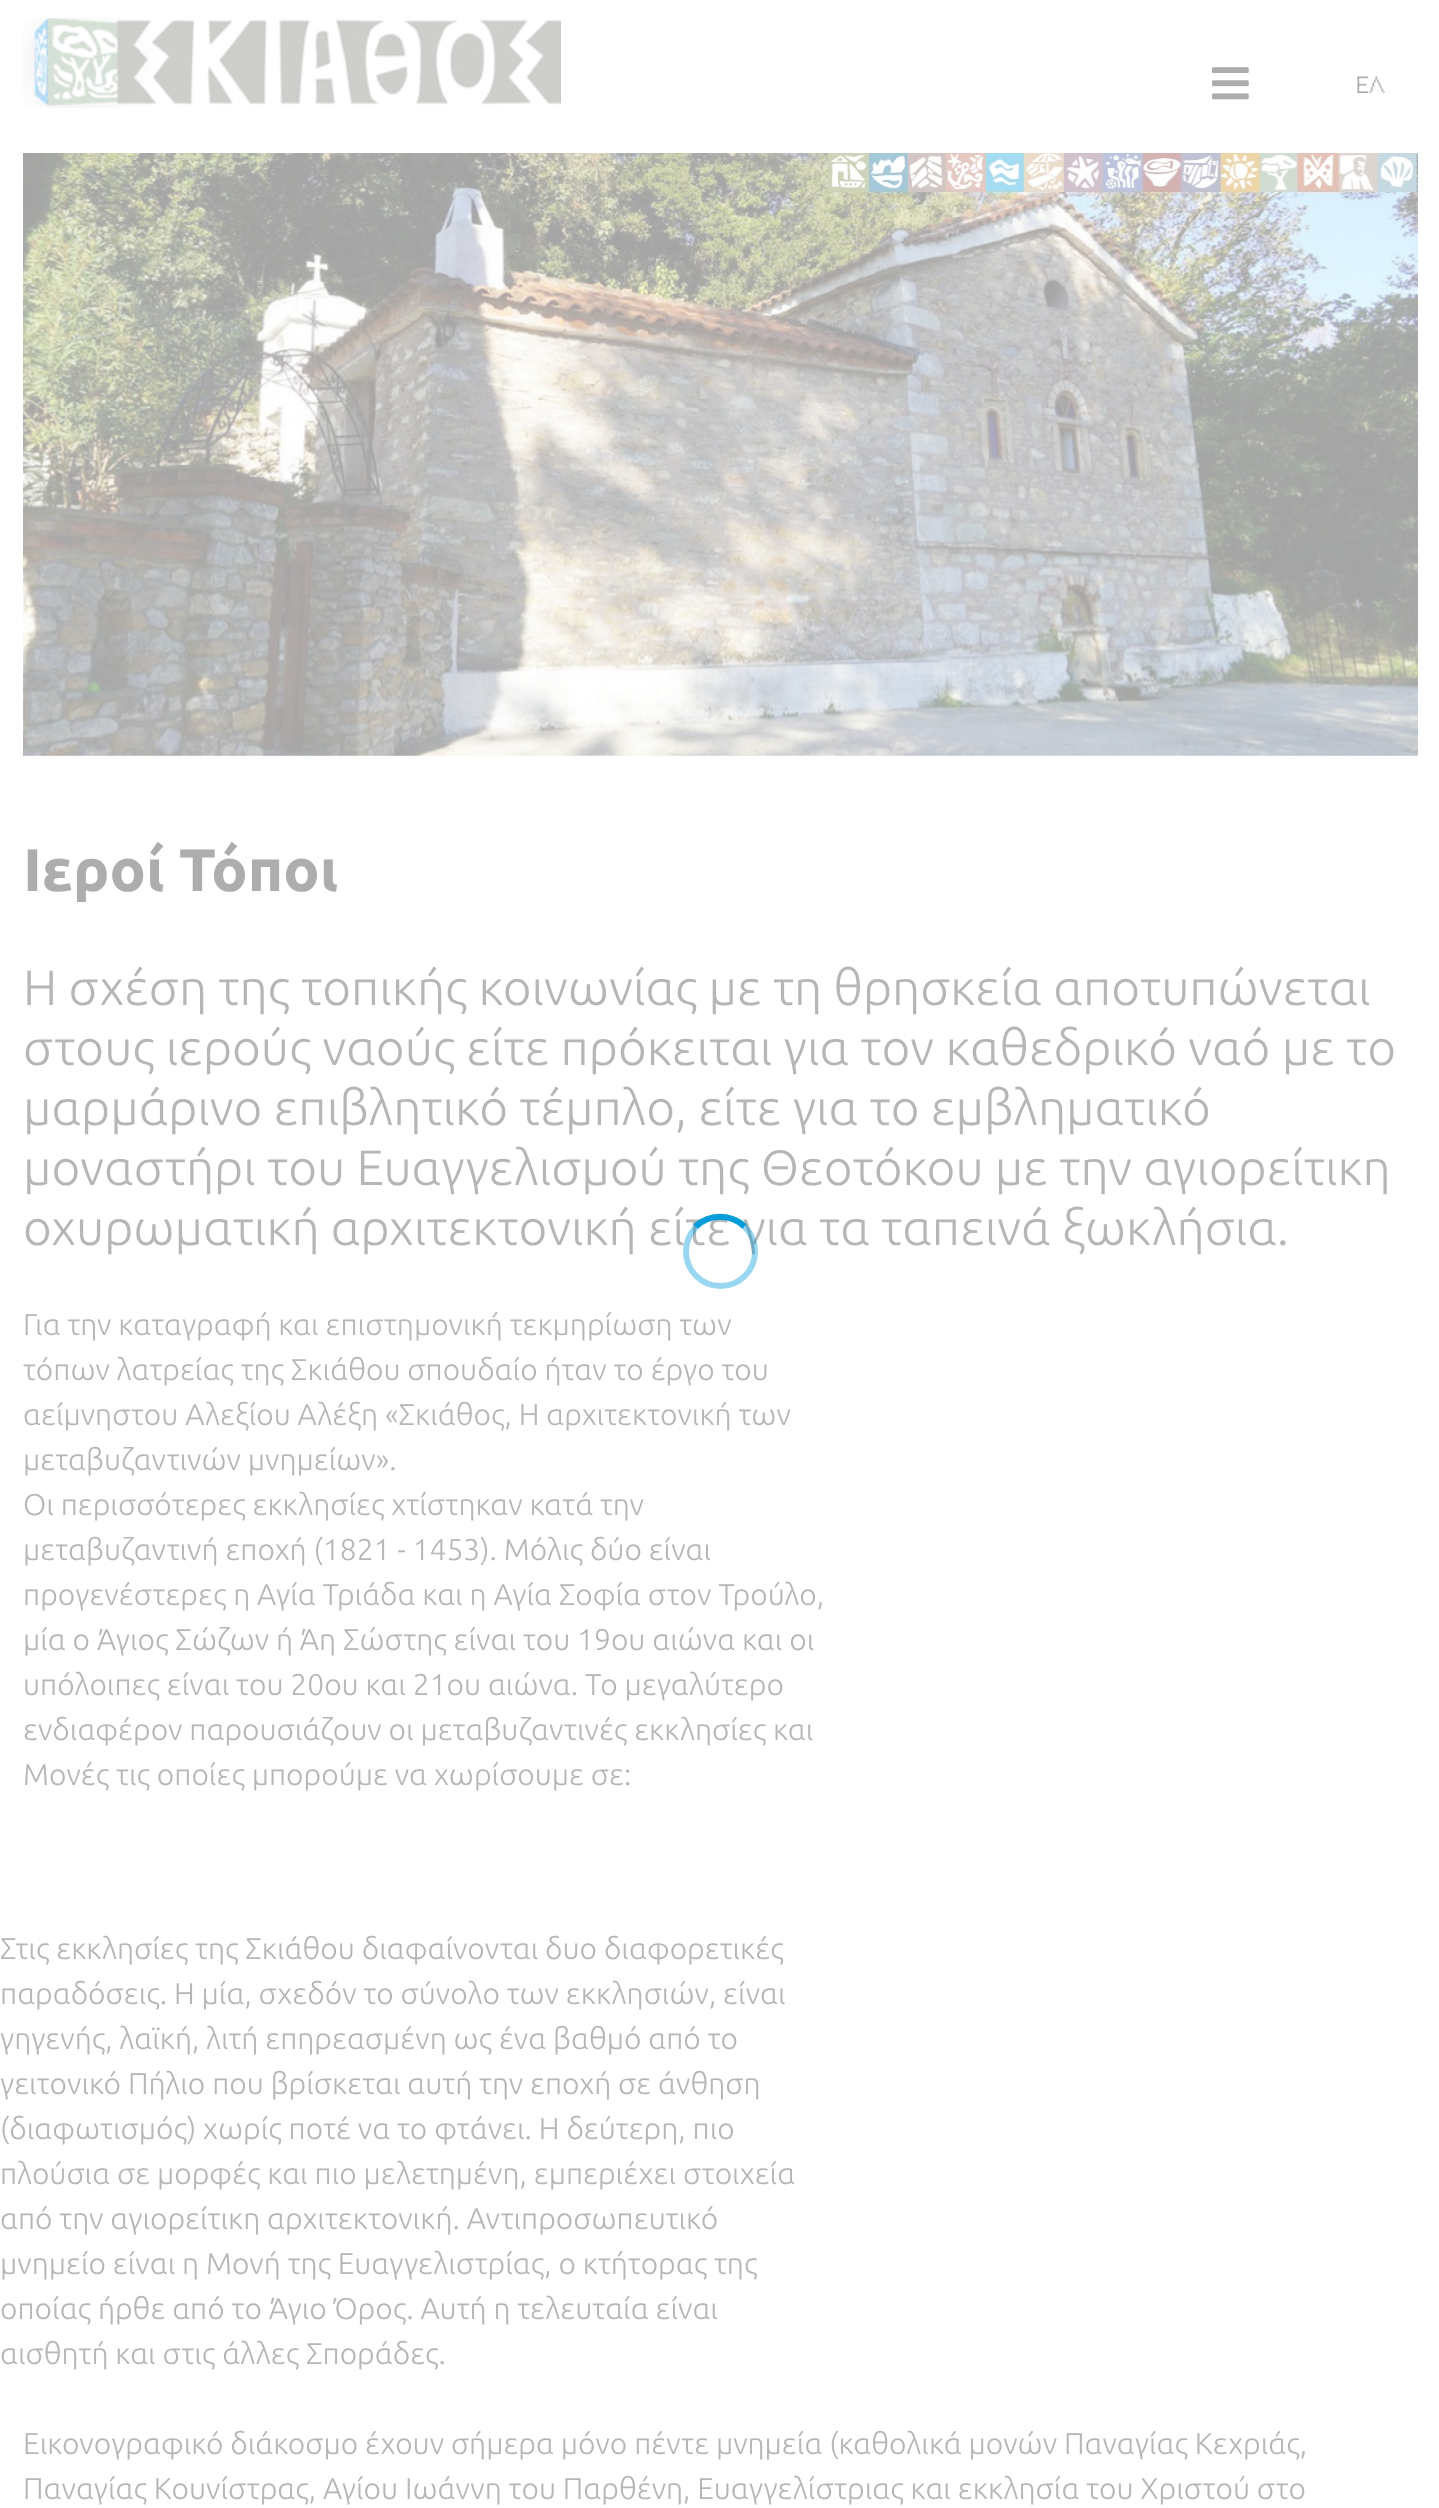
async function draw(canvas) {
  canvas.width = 1439
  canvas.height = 2508
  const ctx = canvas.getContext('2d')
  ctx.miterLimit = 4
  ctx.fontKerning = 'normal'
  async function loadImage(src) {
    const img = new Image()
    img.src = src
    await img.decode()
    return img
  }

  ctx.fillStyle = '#fff'
  ctx.fillRect(0, 0, 1439, 2508)
  ctx.drawImage(await loadImage('image0.png'), 22, 18, 539, 90)
  ctx.drawImage(await loadImage('image1.png'), 1212, 67, 37, 33)
  ctx.drawImage(await loadImage('image2.png'), 1357, 76, 28, 17)
  ctx.drawImage(await loadImage('image3.png'), 23, 153, 1395, 603)
  ctx.font = 'bold 60px Ubuntu'
  ctx.fillStyle = '#adadad'
  ctx.fillText('Ιεροί Τόποι', 23, 891)
  ctx.font = '300 49.5px Ubuntu'
  ctx.fillStyle = '#b6b6b6'
  ctx.fillText('Η σχέση της τοπικής κοινωνίας με τη θρησκεία αποτυπώνεται', 23, 1005)
  ctx.fillText('στους ιερούς ναούς είτε πρόκειται για τον καθεδρικό ναό με το', 23, 1065)
  ctx.fillText('μαρμάρινο επιβλητικό τέμπλο, είτε για το εμβληματικό', 23, 1125)
  ctx.fillText('μοναστήρι του Ευαγγελισμού της Θεοτόκου με την αγιορείτικη', 23, 1185)
  ctx.fillText('οχυρωματική αρχιτεκτονική είτε για τα ταπεινά ξωκλήσια.', 23, 1245)
  ctx.font = '300 30px Ubuntu'
  ctx.fillText('Για την καταγραφή και επιστημονική τεκμηρίωση των', 23, 1335)
  ctx.fillText('τόπων λατρείας της Σκιάθου σπουδαίο ήταν το έργο του', 23, 1380)
  ctx.fillText('αείμνηστου Αλεξίου Αλέξη «Σκιάθος, Η αρχιτεκτονική των', 23, 1425)
  ctx.fillText('μεταβυζαντινών μνημείων».', 23, 1470)
  ctx.fillText('Οι περισσότερες εκκλησίες χτίστηκαν κατά την', 23, 1515)
  ctx.fillText('μεταβυζαντινή εποχή (1821 - 1453). Μόλις δύο είναι', 23, 1560)
  ctx.fillText('προγενέστερες η Αγία Τριάδα και η Αγία Σοφία στον Τρούλο,', 23, 1605)
  ctx.fillText('μία ο Άγιος Σώζων ή Άη Σώστης είναι του 19ου αιώνα και οι', 23, 1650)
  ctx.fillText('υπόλοιπες είναι του 20ου και 21ου αιώνα. Το μεγαλύτερο', 23, 1695)
  ctx.fillText('ενδιαφέρον παρουσιάζουν οι μεταβυζαντινές εκκλησίες και', 23, 1740)
  ctx.fillText('Μονές τις οποίες μπορούμε να χωρίσουμε σε:', 23, 1785)
  ctx.fillText('Στις εκκλησίες της Σκιάθου διαφαίνονται δυο διαφορετικές', 0, 1959)
  ctx.fillText('παραδόσεις. Η μία, σχεδόν το σύνολο των εκκλησιών, είναι', 0, 2004)
  ctx.fillText('γηγενής, λαϊκή, λιτή επηρεασμένη ως ένα βαθμό από το', 0, 2049)
  ctx.fillText('γειτονικό Πήλιο που βρίσκεται αυτή την εποχή σε άνθηση', 0, 2094)
  ctx.fillText('(διαφωτισμός) χωρίς ποτέ να το φτάνει. Η δεύτερη, πιο', 0, 2139)
  ctx.fillText('πλούσια σε μορφές και πιο μελετημένη, εμπεριέχει στοιχεία', 0, 2184)
  ctx.fillText('από την αγιορείτικη αρχιτεκτονική. Αντιπροσωπευτικό', 0, 2229)
  ctx.fillText('μνημείο είναι η Μονή της Ευαγγελιστρίας, ο κτήτορας της', 0, 2274)
  ctx.fillText('οποίας ήρθε από το Άγιο Όρος. Αυτή η τελευταία είναι', 0, 2319)
  ctx.fillText('αισθητή και στις άλλες Σποράδες.', 0, 2364)
  ctx.fillText('Εικονογραφικό διάκοσμο έχουν σήμερα μόνο πέντε μνημεία (καθολικά μονών Παναγίας Κεχριάς,', 23, 2454)
  ctx.fillText('Παναγίας Κουνίστρας, Αγίου Ιωάννη του Παρθένη, Ευαγγελίστριας και εκκλησία του Χριστού στο', 23, 2499)
  ctx.beginPath()
  ctx.arc(720.5, 1251.5, 34.5, 0, 2 * Math.PI)
  ctx.strokeStyle = '#019cd966'
  ctx.lineWidth = 6
  ctx.stroke()
  ctx.beginPath()
  ctx.moveTo(695.5, 1226.5)
  ctx.bezierCurveTo(709, 1213.5, 731, 1213.5, 744.5, 1226.5)
  ctx.strokeStyle = '#019cd9'
  ctx.stroke()
}

draw(document.querySelector('canvas'))
